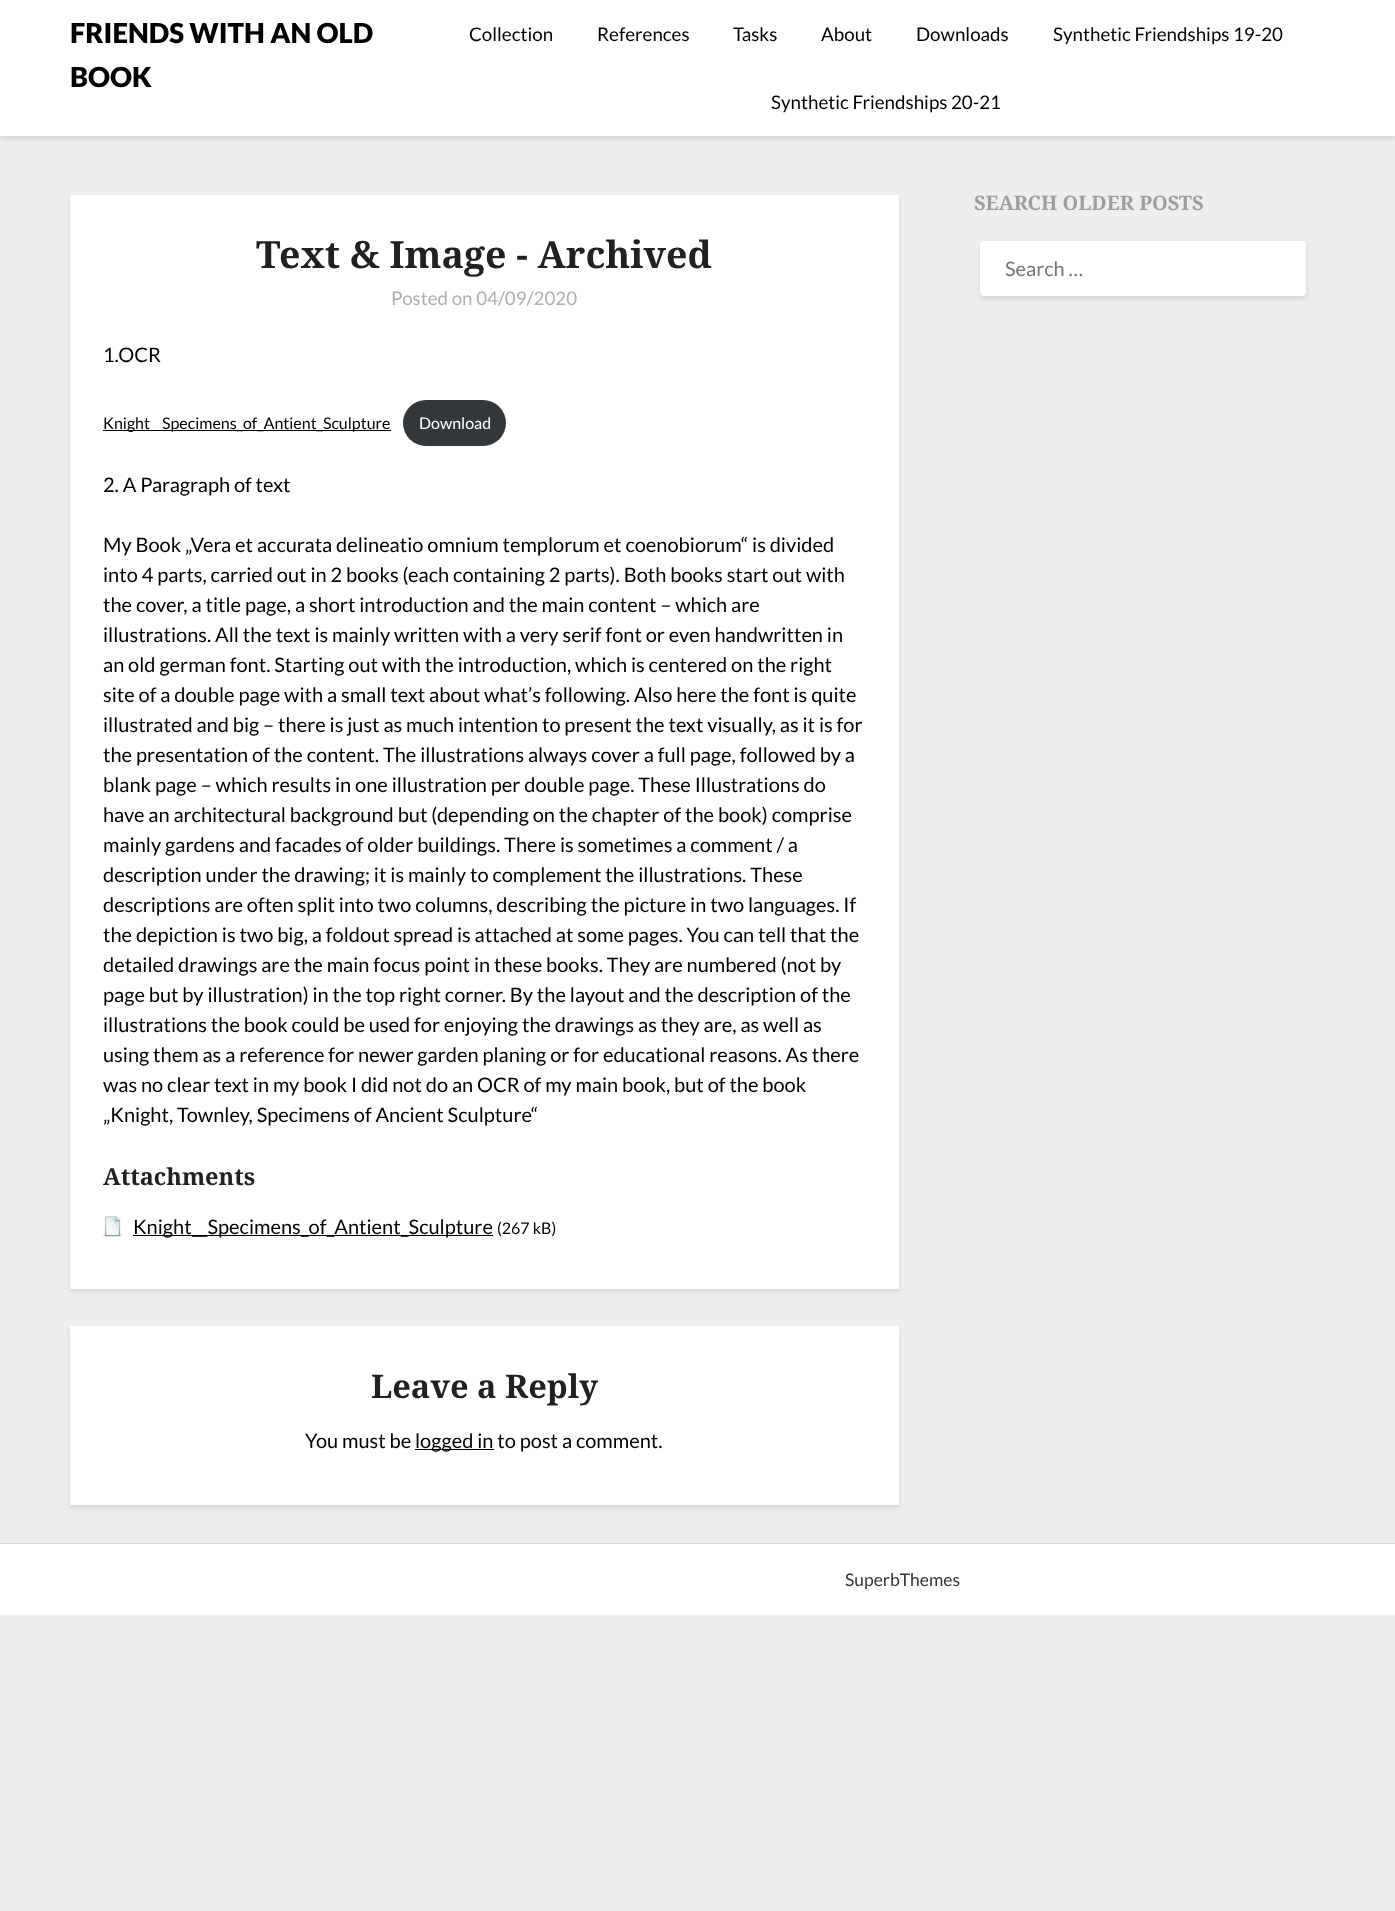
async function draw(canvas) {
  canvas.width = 1395
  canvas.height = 1911
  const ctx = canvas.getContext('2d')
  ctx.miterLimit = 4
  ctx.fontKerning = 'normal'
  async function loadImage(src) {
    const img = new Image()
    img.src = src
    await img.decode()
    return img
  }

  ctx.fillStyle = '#eee'
  ctx.fillRect(0, 0, 1395, 1911)
  ctx.fillStyle = '#0000001a'
  ctx.filter = 'blur(2.5px)'
  ctx.beginPath()
  ctx.rect(0, 3, 1395, 136)
  ctx.fill()
  ctx.filter = 'none'
  ctx.fillStyle = '#fff'
  ctx.fillRect(0, 0, 1395, 136)
  ctx.font = '900 27.5px Lato'
  ctx.fillStyle = '#000'
  ctx.fillText('FRIENDS WITH AN OLD', 70, 43)
  ctx.fillText('BOOK', 70, 87)
  ctx.font = '18.75px Lato'
  ctx.fillText('Collection', 469, 41)
  ctx.fillText('References', 597, 41)
  ctx.fillText('Tasks', 733, 41)
  ctx.fillText('About', 821, 41)
  ctx.fillText('Downloads', 916, 41)
  ctx.fillText('Synthetic Friendships 19-20', 1053, 41)
  ctx.fillText('Synthetic Friendships 20-21', 771, 109)
  ctx.fillStyle = '#0000001a'
  ctx.filter = 'blur(2.5px)'
  ctx.beginPath()
  ctx.roundRect(70, 198, 829, 1093, 1)
  ctx.fill()
  ctx.filter = 'none'
  ctx.fillStyle = '#fff'
  ctx.beginPath()
  ctx.roundRect(70, 195, 829, 1094, 1)
  ctx.fill()
  ctx.font = 'bold 37.5px Noto Serif'
  ctx.fillStyle = '#212121'
  ctx.fillText('Text & Image - Archived', 256, 268)
  ctx.font = '18.75px Lato'
  ctx.fillStyle = '#afafaf'
  ctx.fillText('Posted on 04/09/2020', 391, 305)
  ctx.font = '20px Lato'
  ctx.fillStyle = '#000'
  ctx.fillText('1.OCR', 103, 362)
  ctx.fillRect(103, 430, 288, 1)
  ctx.font = '16px Lato'
  ctx.fillText('Knight', 103, 429)
  ctx.fillText('Specimens_of_Antient_Sculpture', 162, 429)
  ctx.fillStyle = '#32373c'
  ctx.beginPath()
  ctx.roundRect(403, 400, 103, 46, 23)
  ctx.fill()
  ctx.fillStyle = '#fff'
  ctx.fillText('Download', 419, 429)
  ctx.font = '20px Lato'
  ctx.fillStyle = '#000'
  ctx.fillText('2. A Paragraph of text', 103, 492)
  ctx.fillText('My Book „Vera et accurata delineatio omnium templorum et coenobiorum“ is divided', 103, 552)
  ctx.fillText('into 4 parts, carried out in 2 books (each containing 2 parts). Both books start out with', 103, 582)
  ctx.fillText('the cover, a title page, a short introduction and the main content – which are', 103, 612)
  ctx.fillText('illustrations. All the text is mainly written with a very serif font or even handwritten in', 103, 642)
  ctx.fillText('an old german font. Starting out with the introduction, which is centered on the right', 103, 672)
  ctx.fillText('site of a double page with a small text about what’s following. Also here the font is quite', 103, 702)
  ctx.fillText('illustrated and big – there is just as much intention to present the text visually, as it is for', 103, 732)
  ctx.fillText('the presentation of the content. The illustrations always cover a full page, followed by a', 103, 762)
  ctx.fillText('blank page – which results in one illustration per double page. These Illustrations do', 103, 792)
  ctx.fillText('have an architectural background but (depending on the chapter of the book) comprise', 103, 822)
  ctx.fillText('mainly gardens and facades of older buildings. There is sometimes a comment / a', 103, 852)
  ctx.fillText('description under the drawing; it is mainly to complement the illustrations. These', 103, 882)
  ctx.fillText('descriptions are often split into two columns, describing the picture in two languages. If', 103, 912)
  ctx.fillText('the depiction is two big, a foldout spread is attached at some pages. You can tell that the', 103, 942)
  ctx.fillText('detailed drawings are the main focus point in these books. They are numbered (not by', 103, 972)
  ctx.fillText('page but by illustration) in the top right corner. By the layout and the description of the', 103, 1002)
  ctx.fillText('illustrations the book could be used for enjoying the drawings as they are, as well as', 103, 1032)
  ctx.fillText('using them as a reference for newer garden planing or for educational reasons. As there', 103, 1062)
  ctx.fillText('was no clear text in my book I did not do an OCR of my main book, but of the book', 103, 1092)
  ctx.fillText('„Knight, Townley, Specimens of Ancient Sculpture“', 103, 1122)
  ctx.font = 'bold 23.5px Noto Serif'
  ctx.fillStyle = '#212121'
  ctx.fillText('Attachments', 103, 1185)
  ctx.drawImage(await loadImage('image0.png'), 102, 1216, 21, 21)
  ctx.fillStyle = '#000'
  ctx.fillRect(133, 1235, 360, 1)
  ctx.font = '20px Lato'
  ctx.fillText('Knight__Specimens_of_Antient_Sculpture', 133, 1234)
  ctx.font = '16px Lato'
  ctx.fillText('(267 kB)', 497, 1234)
  ctx.fillStyle = '#0000001a'
  ctx.filter = 'blur(2.5px)'
  ctx.beginPath()
  ctx.roundRect(70, 1329, 829, 179, 1)
  ctx.fill()
  ctx.filter = 'none'
  ctx.fillStyle = '#fff'
  ctx.beginPath()
  ctx.roundRect(70, 1326, 829, 179, 1)
  ctx.fill()
  ctx.font = 'bold 32.5px Noto Serif'
  ctx.fillStyle = '#212121'
  ctx.fillText('Leave a Reply', 371, 1398)
  ctx.font = '20px Lato'
  ctx.fillStyle = '#000'
  ctx.fillText('You must be', 305, 1448)
  ctx.fillRect(415, 1449, 79, 1)
  ctx.fillText('logged in to post a comment.', 415, 1448)
  ctx.font = 'bold 20px Noto Serif'
  ctx.fillStyle = '#9e9e9e'
  ctx.fillText('SEARCH OLDER POSTS', 974, 210)
  ctx.fillStyle = '#0000001a'
  ctx.filter = 'blur(2.5px)'
  ctx.beginPath()
  ctx.roundRect(980, 244, 326, 55, 4)
  ctx.fill()
  ctx.filter = 'none'
  ctx.fillStyle = '#fff'
  ctx.beginPath()
  ctx.roundRect(980, 241, 326, 55, 4)
  ctx.fill()
  ctx.font = '20px Lato'
  ctx.fillStyle = '#757575'
  ctx.fillText('Search …', 1005, 276)
  ctx.fillStyle = '#fff'
  ctx.fillRect(0, 1544, 1395, 71)
  ctx.fillStyle = '#d6d6d6'
  ctx.fillRect(0, 1543, 1395, 1)
  ctx.font = '17.5px Lato'
  ctx.fillStyle = '#333'
  ctx.fillText('SuperbThemes', 845, 1586)
}

draw(document.querySelector('canvas'))
